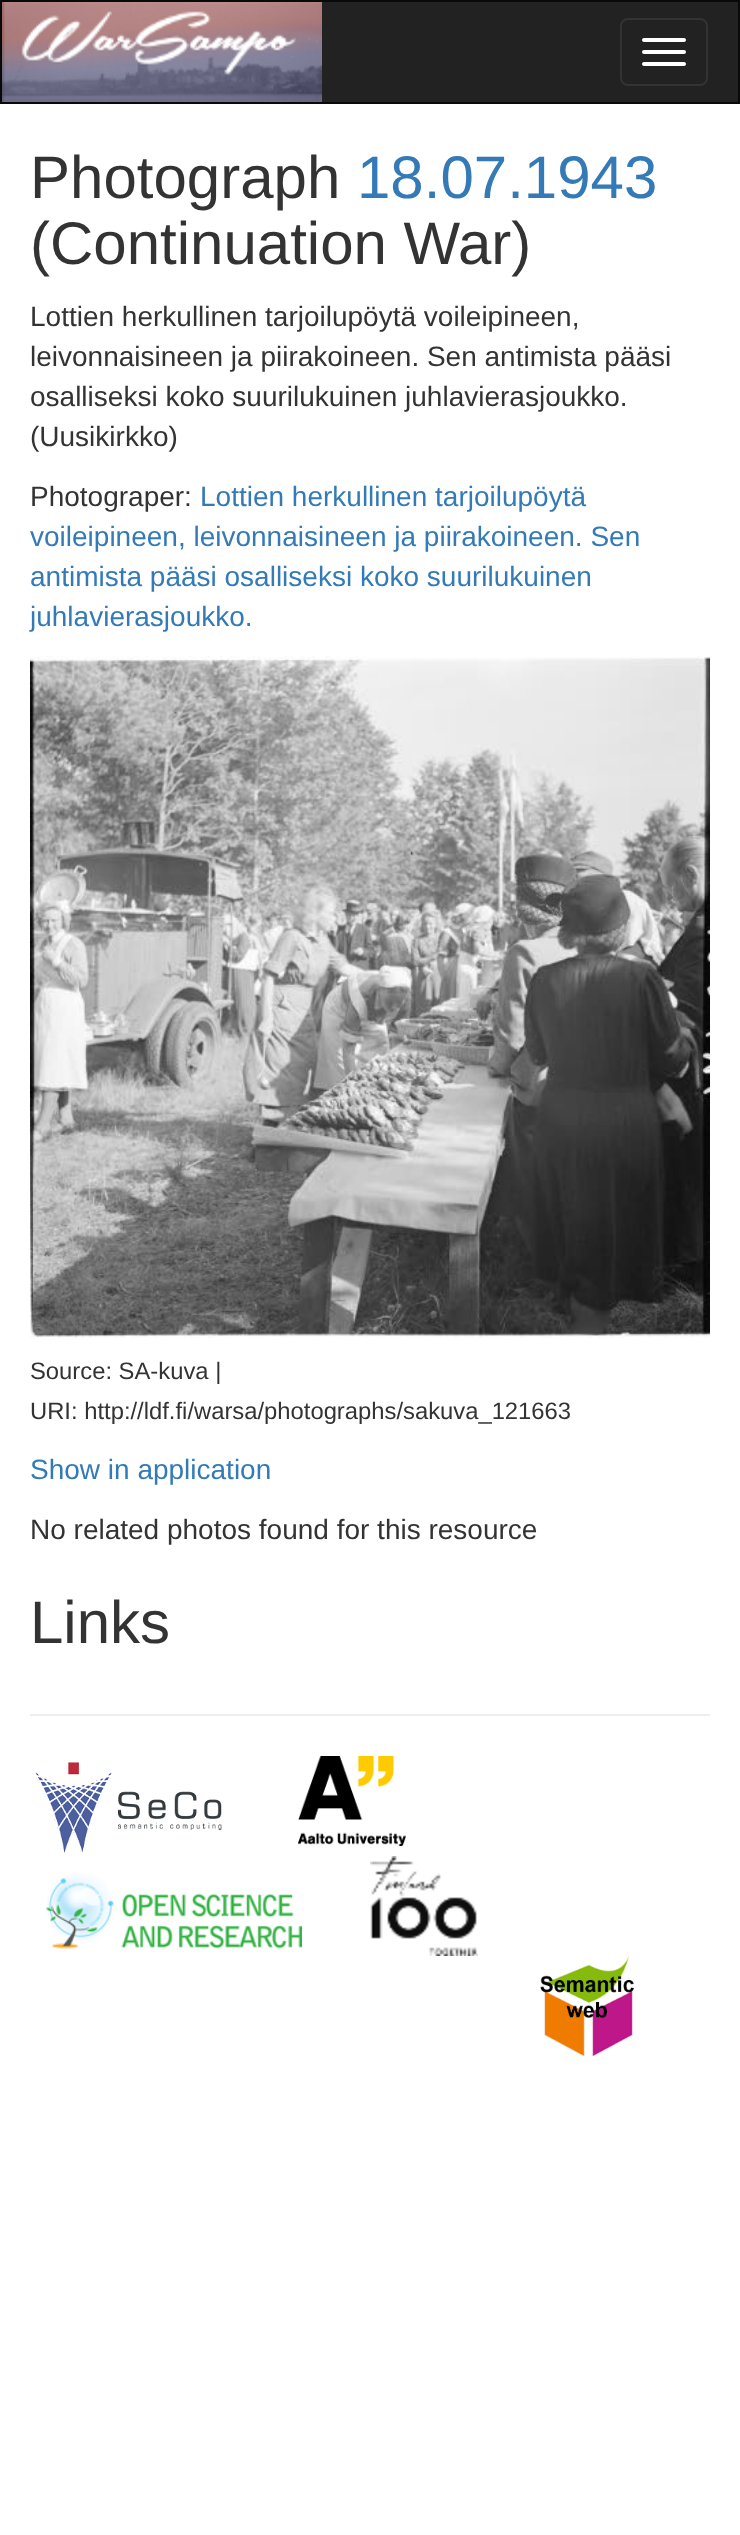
async function draw(canvas) {
  canvas.width = 740
  canvas.height = 2535
  const ctx = canvas.getContext('2d')
  ctx.miterLimit = 4
  ctx.fontKerning = 'normal'
  async function loadImage(src) {
    const img = new Image()
    img.src = src
    await img.decode()
    return img
  }

  ctx.fillStyle = '#fff'
  ctx.fillRect(0, 0, 740, 2535)
  ctx.fillStyle = '#222'
  ctx.beginPath()
  ctx.rect(1, 1, 738, 102)
  ctx.fill()
  ctx.strokeStyle = '#090909'
  ctx.lineWidth = 2
  ctx.stroke()
  ctx.drawImage(await loadImage('image0.png'), 2, 2, 320, 100)
  ctx.beginPath()
  ctx.roundRect(621, 19, 86, 66, 7)
  ctx.strokeStyle = '#333'
  ctx.stroke()
  ctx.fillStyle = '#fff'
  ctx.beginPath()
  ctx.roundRect(642, 38, 44, 4, 2)
  ctx.fill()
  ctx.beginPath()
  ctx.roundRect(642, 50, 44, 4, 2)
  ctx.fill()
  ctx.beginPath()
  ctx.roundRect(642, 62, 44, 4, 2)
  ctx.fill()
  ctx.font = '60px Liberation Sans'
  ctx.fillStyle = '#333'
  ctx.fillText('Photograph', 30, 198)
  ctx.fillStyle = '#337ab7'
  ctx.fillText('18.07.1943', 357, 198)
  ctx.fillStyle = '#333'
  ctx.fillText('(Continuation War)', 30, 264)
  ctx.font = '28px Liberation Sans'
  ctx.fillText('Lottien herkullinen tarjoilupöytä voileipineen,', 30, 326)
  ctx.fillText('leivonnaisineen ja piirakoineen. Sen antimista pääsi', 30, 366)
  ctx.fillText('osalliseksi koko suurilukuinen juhlavierasjoukko.', 30, 406)
  ctx.fillText('(Uusikirkko)', 30, 446)
  ctx.fillText('Photograper:', 30, 506)
  ctx.fillStyle = '#337ab7'
  ctx.fillText('Lottien herkullinen tarjoilupöytä', 200, 506)
  ctx.fillText('voileipineen, leivonnaisineen ja piirakoineen. Sen', 30, 546)
  ctx.fillText('antimista pääsi osalliseksi koko suurilukuinen', 30, 586)
  ctx.fillText('juhlavierasjoukko.', 30, 626)
  ctx.drawImage(await loadImage('image1.png'), 30, 656, 680, 682)
  ctx.font = '23.8px Liberation Sans'
  ctx.fillStyle = '#333'
  ctx.fillText('Source: SA-kuva |', 30, 1379)
  ctx.fillText('URI: http://ldf.fi/warsa/photographs/sakuva_121663', 30, 1419)
  ctx.font = '28px Liberation Sans'
  ctx.fillStyle = '#337ab7'
  ctx.fillText('Show in application', 30, 1479)
  ctx.fillStyle = '#333'
  ctx.fillText('No related photos found for this resource', 30, 1539)
  ctx.font = '60px Liberation Sans'
  ctx.fillText('Links', 30, 1643)
  ctx.fillStyle = '#eee'
  ctx.fillRect(30, 1714, 680, 2)
  ctx.drawImage(await loadImage('image2.png'), 35, 1762, 187, 93)
  ctx.drawImage(await loadImage('image3.png'), 298, 1756, 108, 90)
  ctx.drawImage(await loadImage('image4.png'), 46, 1873, 256, 76)
  ctx.drawImage(await loadImage('image5.png'), 370, 1856, 108, 100)
  ctx.drawImage(await loadImage('image6.png'), 540, 1956, 94, 100)
}

draw(document.querySelector('canvas'))
